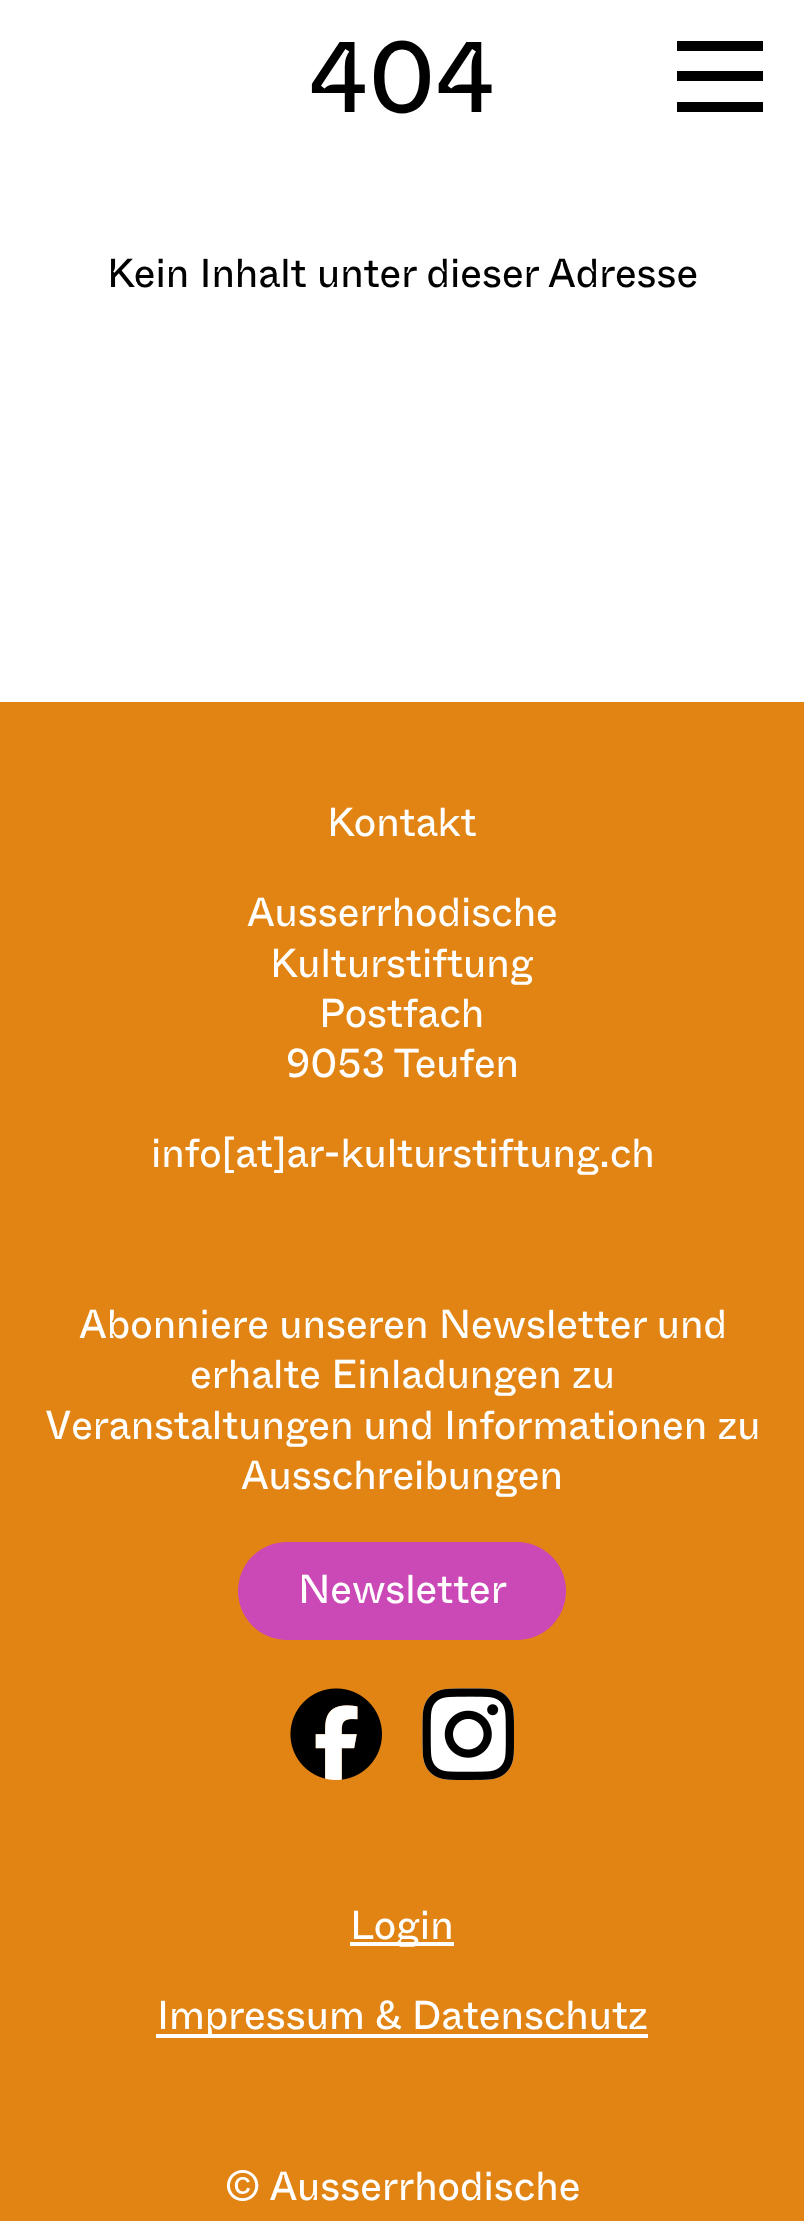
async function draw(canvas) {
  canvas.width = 804
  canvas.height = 2221
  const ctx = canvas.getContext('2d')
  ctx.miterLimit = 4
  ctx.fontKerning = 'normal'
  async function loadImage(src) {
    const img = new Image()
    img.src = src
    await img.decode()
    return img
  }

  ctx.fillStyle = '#fff'
  ctx.fillRect(0, 0, 804, 2221)
  ctx.font = '100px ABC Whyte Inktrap'
  ctx.fillStyle = '#000'
  ctx.fillText('404', 309, 112)
  ctx.font = '40.25px ABC Whyte Inktrap'
  ctx.fillText('Kein Inhalt unter dieser Adresse', 107, 287)
  ctx.beginPath()
  ctx.moveTo(763, 51)
  ctx.lineTo(677, 51)
  ctx.lineTo(677, 41)
  ctx.lineTo(763, 41)
  ctx.closePath()
  ctx.moveTo(763, 81)
  ctx.lineTo(677, 81)
  ctx.lineTo(677, 71)
  ctx.lineTo(763, 71)
  ctx.closePath()
  ctx.moveTo(763, 112)
  ctx.lineTo(677, 112)
  ctx.lineTo(677, 102)
  ctx.lineTo(763, 102)
  ctx.closePath()
  ctx.fill()
  ctx.fillStyle = '#e28413'
  ctx.fillRect(0, 702, 804, 1519)
  ctx.fillStyle = '#fff'
  ctx.fillText('Kontakt', 327, 836)
  ctx.fillText('Ausserrhodische', 247, 926)
  ctx.fillText('Kulturstiftung', 270, 977)
  ctx.fillText('Postfach', 319, 1027)
  ctx.fillText('9053 Teufen', 286, 1077)
  ctx.fillText('info[at]ar-kulturstiftung.ch', 151, 1167)
  ctx.fillText('Abonniere unseren Newsletter und', 79, 1338)
  ctx.fillText('erhalte Einladungen zu', 190, 1388)
  ctx.fillText('Veranstaltungen und Informationen zu', 45, 1439)
  ctx.fillText('Ausschreibungen', 241, 1489)
  ctx.fillStyle = '#cb48b7'
  ctx.beginPath()
  ctx.roundRect(238, 1542, 328, 98, 49)
  ctx.fill()
  ctx.fillStyle = '#fff'
  ctx.fillText('Newsletter', 298, 1603)
  ctx.drawImage(await loadImage('image0.png'), 290, 1688, 92, 92)
  ctx.drawImage(await loadImage('image1.png'), 422, 1688, 92, 92)
  ctx.fillRect(350, 1942, 104, 4)
  ctx.fillText('Login', 350, 1939)
  ctx.fillRect(156, 2034, 492, 4)
  ctx.fillText('Impressum & Datenschutz', 157, 2029)
  ctx.fillText('© Ausserrhodische', 225, 2200)
}

draw(document.querySelector('canvas'))
